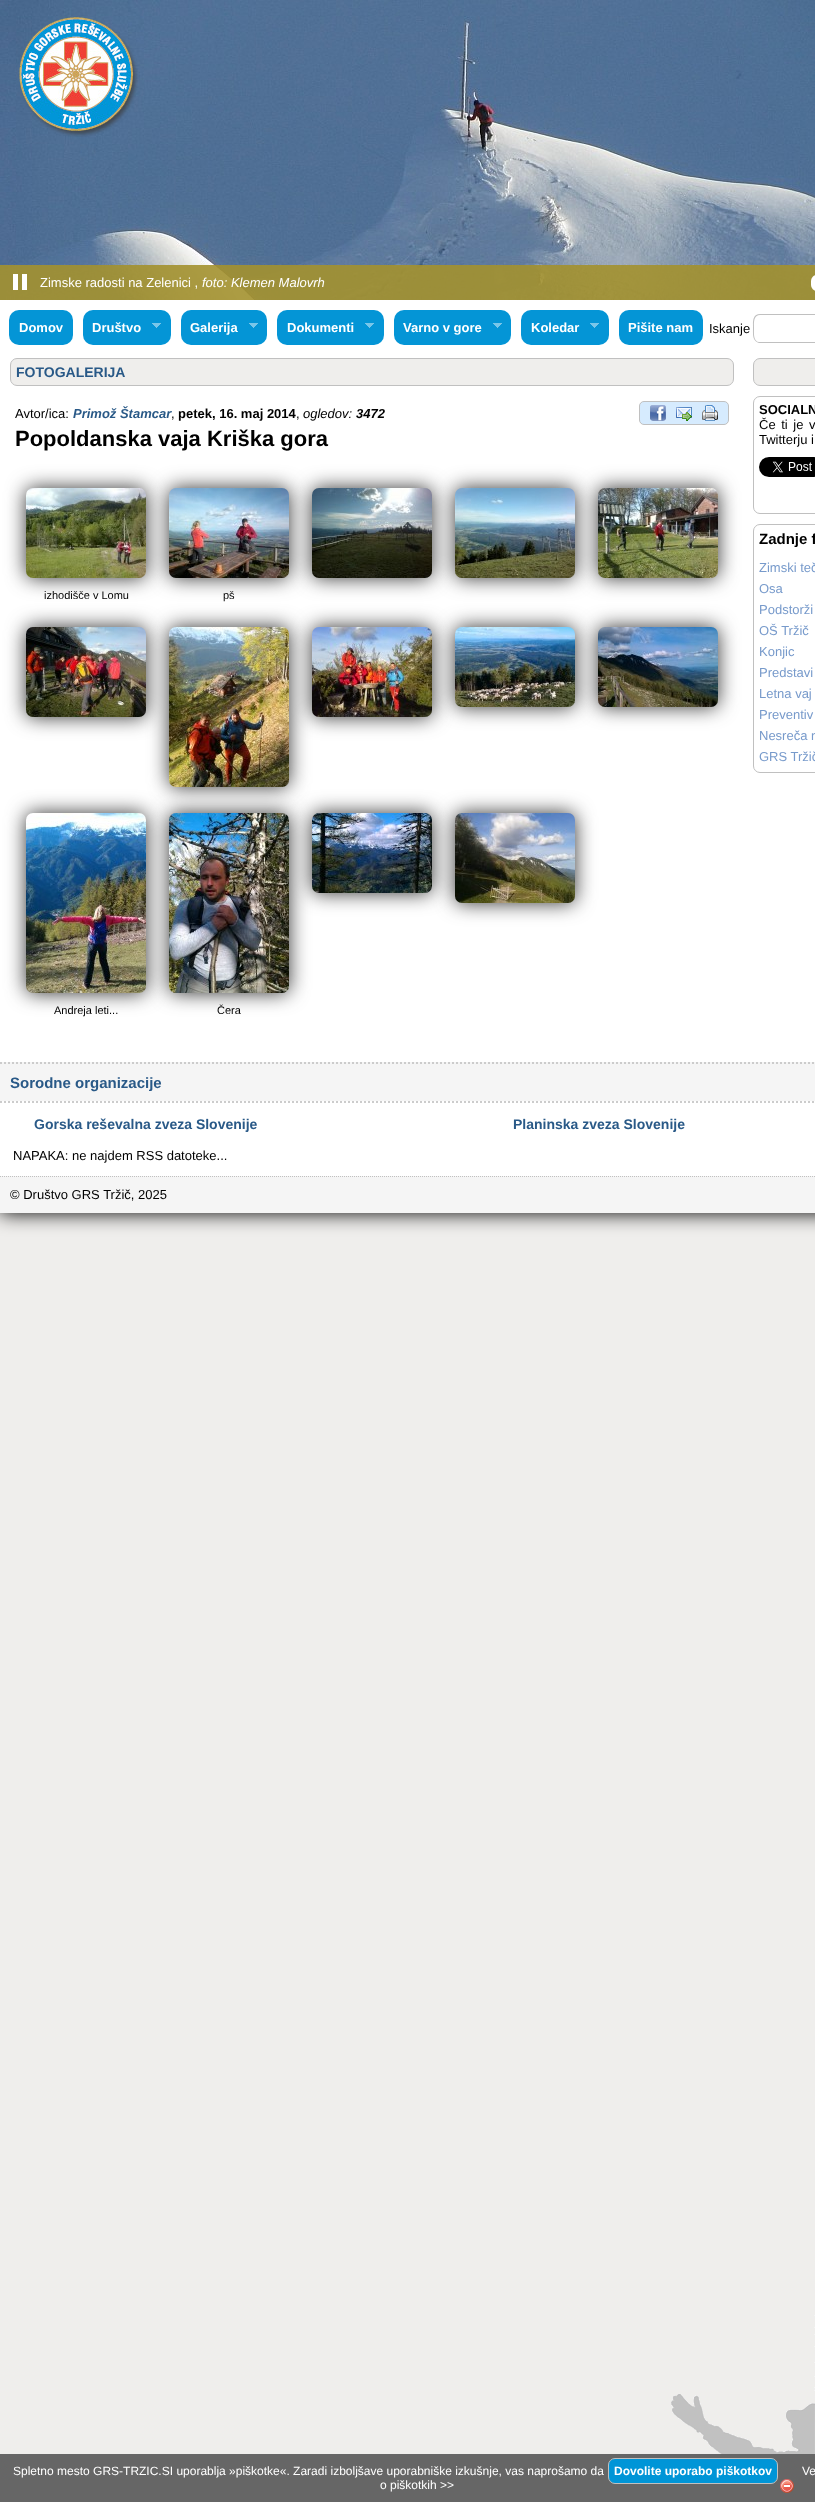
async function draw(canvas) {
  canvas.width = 815
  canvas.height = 2502
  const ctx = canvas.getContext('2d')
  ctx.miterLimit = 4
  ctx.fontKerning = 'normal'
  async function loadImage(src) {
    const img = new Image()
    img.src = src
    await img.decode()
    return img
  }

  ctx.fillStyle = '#efeeec'
  ctx.fillRect(0, 0, 815, 2502)
  ctx.drawImage(await loadImage('image0.png'), 671, 2315, 144, 139)
  ctx.fillStyle = '#000'
  ctx.filter = 'blur(10px)'
  ctx.beginPath()
  ctx.rect(0, 0, 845, 1213)
  ctx.fill()
  ctx.filter = 'none'
  ctx.fillStyle = '#fff'
  ctx.fillRect(0, 300, 815, 762)
  ctx.drawImage(await loadImage('image3.png'), 0, 0, 815, 300)
  ctx.drawImage(await loadImage('image1.png'), 19, 17, 119, 120)
  ctx.fillStyle = '#a3912fe6'
  ctx.fillRect(0, 265, 815, 35)
  ctx.drawImage(await loadImage('image2.png'), 13, 274, 14, 16)
  ctx.fillStyle = '#fff'
  ctx.beginPath()
  ctx.roundRect(811, 275, 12, 16, 8)
  ctx.fill()
  ctx.font = '13px Liberation Sans'
  ctx.fillText('Zimske radosti na Zelenici ,', 40, 287)
  ctx.font = 'italic 13px Liberation Sans'
  ctx.fillText('foto: Klemen Malovrh', 202, 287)
  ctx.fillStyle = '#0495d6'
  ctx.beginPath()
  ctx.roundRect(9, 310, 64, 35, 10)
  ctx.fill()
  ctx.font = 'bold 13px Liberation Sans'
  ctx.fillStyle = '#fff'
  ctx.fillText('Domov', 19, 332)
  ctx.fillStyle = '#0495d6'
  ctx.beginPath()
  ctx.roundRect(83, 310, 88, 35, 10)
  ctx.fill()
  ctx.fillStyle = '#fff'
  ctx.fillText('Društvo', 92, 332)
  ctx.drawImage(await loadImage('image4.png'), 152, 323, 9, 5)
  ctx.fillStyle = '#0495d6'
  ctx.beginPath()
  ctx.roundRect(181, 310, 86, 35, 10)
  ctx.fill()
  ctx.fillStyle = '#fff'
  ctx.fillText('Galerija', 190, 332)
  ctx.drawImage(await loadImage('image4.png'), 249, 323, 9, 5)
  ctx.fillStyle = '#0495d6'
  ctx.beginPath()
  ctx.roundRect(277, 310, 107, 35, 10)
  ctx.fill()
  ctx.fillStyle = '#fff'
  ctx.fillText('Dokumenti', 287, 332)
  ctx.drawImage(await loadImage('image4.png'), 365, 323, 9, 5)
  ctx.fillStyle = '#0495d6'
  ctx.beginPath()
  ctx.roundRect(394, 310, 117, 35, 10)
  ctx.fill()
  ctx.fillStyle = '#fff'
  ctx.fillText('Varno v gore', 403, 332)
  ctx.drawImage(await loadImage('image4.png'), 493, 323, 9, 5)
  ctx.fillStyle = '#0495d6'
  ctx.beginPath()
  ctx.roundRect(521, 310, 88, 35, 10)
  ctx.fill()
  ctx.fillStyle = '#fff'
  ctx.fillText('Koledar', 531, 332)
  ctx.drawImage(await loadImage('image4.png'), 590, 323, 9, 5)
  ctx.fillStyle = '#0495d6'
  ctx.beginPath()
  ctx.roundRect(619, 310, 84, 35, 10)
  ctx.fill()
  ctx.fillStyle = '#fff'
  ctx.fillText('Pišite nam', 628, 332)
  ctx.font = '13px Liberation Sans'
  ctx.fillStyle = '#000'
  ctx.fillText('Iskanje', 709, 333)
  ctx.fillStyle = '#c0c0c0'
  ctx.beginPath()
  ctx.moveTo(760, 314)
  ctx.lineTo(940, 314)
  ctx.lineTo(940, 343)
  ctx.lineTo(759, 343)
  ctx.bezierCurveTo(752, 341, 753, 334, 753, 328)
  ctx.bezierCurveTo(753, 323, 752, 314, 760, 314)
  ctx.closePath()
  ctx.moveTo(760, 315)
  ctx.lineTo(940, 315)
  ctx.lineTo(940, 342)
  ctx.lineTo(759, 342)
  ctx.bezierCurveTo(753, 341, 754, 333, 754, 328)
  ctx.bezierCurveTo(754, 324, 753, 315, 760, 315)
  ctx.closePath()
  ctx.fill('evenodd')
  ctx.fillStyle = '#efeeec'
  ctx.beginPath()
  ctx.roundRect(10.5, 358.5, 723, 27, 6.5)
  ctx.fill()
  ctx.strokeStyle = '#c0c0c0'
  ctx.stroke()
  ctx.font = 'bold 14px Liberation Sans'
  ctx.fillStyle = '#295987'
  ctx.fillText('FOTOGALERIJA', 16, 377)
  ctx.fillStyle = '#efeeec'
  ctx.beginPath()
  ctx.roundRect(753.5, 358.5, 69, 27, 6.5)
  ctx.fill()
  ctx.stroke()
  ctx.font = '13px Liberation Sans'
  ctx.fillStyle = '#000'
  ctx.fillText('Avtor/ica:', 15, 418)
  ctx.font = 'italic bold 13px Liberation Sans'
  ctx.fillStyle = '#295987'
  ctx.fillText('Primož Štamcar', 73, 418)
  ctx.font = '13px Liberation Sans'
  ctx.fillStyle = '#000'
  ctx.fillText(',', 171, 418)
  ctx.font = 'bold 13px Liberation Sans'
  ctx.fillText('petek, 16. maj 2014', 178, 418)
  ctx.font = '13px Liberation Sans'
  ctx.fillText(',', 296, 418)
  ctx.font = 'italic 13px Liberation Sans'
  ctx.fillText('ogledov:', 303, 418)
  ctx.font = 'italic bold 13px Liberation Sans'
  ctx.fillText('3472', 356, 418)
  ctx.fillStyle = '#d6ebfe'
  ctx.beginPath()
  ctx.roundRect(639.5, 401.5, 89, 23, 4.5)
  ctx.fill()
  ctx.stroke()
  ctx.drawImage(await loadImage('image5.png'), 650, 405, 16, 16)
  ctx.drawImage(await loadImage('image6.png'), 676, 407, 16, 14)
  ctx.drawImage(await loadImage('image7.png'), 702, 405, 16, 16)
  ctx.font = 'bold 22px Liberation Sans'
  ctx.fillStyle = '#000'
  ctx.fillText('Popoldanska vaja Kriška gora', 15, 446)
  ctx.fillStyle = '#333'
  ctx.filter = 'blur(10px)'
  ctx.beginPath()
  ctx.roundRect(26, 488, 120, 90, 7)
  ctx.fill()
  ctx.filter = 'none'
  ctx.drawImage(await loadImage('image8.png'), 26, 488, 120, 90)
  ctx.font = '11px Liberation Sans'
  ctx.fillStyle = '#000'
  ctx.fillText('izhodišče v Lomu', 44, 599)
  ctx.fillStyle = '#333'
  ctx.filter = 'blur(10px)'
  ctx.beginPath()
  ctx.roundRect(169, 488, 120, 90, 7)
  ctx.fill()
  ctx.filter = 'none'
  ctx.drawImage(await loadImage('image9.png'), 169, 488, 120, 90)
  ctx.fillStyle = '#000'
  ctx.fillText('pš', 223, 599)
  ctx.fillStyle = '#333'
  ctx.filter = 'blur(10px)'
  ctx.beginPath()
  ctx.roundRect(312, 488, 120, 90, 7)
  ctx.fill()
  ctx.filter = 'none'
  ctx.drawImage(await loadImage('image10.png'), 312, 488, 120, 90)
  ctx.filter = 'blur(10px)'
  ctx.beginPath()
  ctx.roundRect(455, 488, 120, 90, 7)
  ctx.fill()
  ctx.filter = 'none'
  ctx.drawImage(await loadImage('image11.png'), 455, 488, 120, 90)
  ctx.filter = 'blur(10px)'
  ctx.beginPath()
  ctx.roundRect(598, 488, 120, 90, 7)
  ctx.fill()
  ctx.filter = 'none'
  ctx.drawImage(await loadImage('image12.png'), 598, 488, 120, 90)
  ctx.filter = 'blur(10px)'
  ctx.beginPath()
  ctx.roundRect(26, 627, 120, 90, 7)
  ctx.fill()
  ctx.filter = 'none'
  ctx.drawImage(await loadImage('image13.png'), 26, 627, 120, 90)
  ctx.filter = 'blur(10px)'
  ctx.beginPath()
  ctx.roundRect(169, 627, 120, 160, 7)
  ctx.fill()
  ctx.filter = 'none'
  ctx.drawImage(await loadImage('image14.png'), 169, 627, 120, 160)
  ctx.filter = 'blur(10px)'
  ctx.beginPath()
  ctx.roundRect(312, 627, 120, 90, 7)
  ctx.fill()
  ctx.filter = 'none'
  ctx.drawImage(await loadImage('image15.png'), 312, 627, 120, 90)
  ctx.filter = 'blur(10px)'
  ctx.beginPath()
  ctx.roundRect(455, 627, 120, 80, 7)
  ctx.fill()
  ctx.filter = 'none'
  ctx.drawImage(await loadImage('image16.png'), 455, 627, 120, 80)
  ctx.filter = 'blur(10px)'
  ctx.beginPath()
  ctx.roundRect(598, 627, 120, 80, 7)
  ctx.fill()
  ctx.filter = 'none'
  ctx.drawImage(await loadImage('image17.png'), 598, 627, 120, 80)
  ctx.filter = 'blur(10px)'
  ctx.beginPath()
  ctx.roundRect(26, 813, 120, 180, 7)
  ctx.fill()
  ctx.filter = 'none'
  ctx.drawImage(await loadImage('image20.png'), 26, 813, 120, 180)
  ctx.filter = 'blur(10px)'
  ctx.beginPath()
  ctx.roundRect(169, 813, 120, 180, 7)
  ctx.fill()
  ctx.filter = 'none'
  ctx.drawImage(await loadImage('image21.png'), 169, 813, 120, 180)
  ctx.filter = 'blur(10px)'
  ctx.beginPath()
  ctx.roundRect(312, 813, 120, 80, 7)
  ctx.fill()
  ctx.filter = 'none'
  ctx.drawImage(await loadImage('image18.png'), 312, 813, 120, 80)
  ctx.filter = 'blur(10px)'
  ctx.beginPath()
  ctx.roundRect(455, 813, 120, 90, 7)
  ctx.fill()
  ctx.filter = 'none'
  ctx.drawImage(await loadImage('image19.png'), 455, 813, 120, 90)
  ctx.fillStyle = '#000'
  ctx.fillText('Andreja leti...', 54, 1014)
  ctx.fillText('Čera', 217, 1014)
  ctx.beginPath()
  ctx.roundRect(753.5, 396.5, 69, 117, 6.5)
  ctx.stroke()
  ctx.font = 'bold 13px Liberation Sans'
  ctx.fillText('SOCIALN', 759, 414)
  ctx.wordSpacing = '2px'
  ctx.font = '13px Liberation Sans'
  ctx.fillText('Če ti je v', 759, 429)
  ctx.wordSpacing = '0px'
  ctx.fillText('Twitterju i', 759, 444)
  ctx.drawImage(await loadImage('image22.png'), 759, 457, 56, 20)
  ctx.beginPath()
  ctx.roundRect(753.5, 524.5, 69, 248, 6.5)
  ctx.stroke()
  ctx.font = 'bold 15px Liberation Sans'
  ctx.fillText('Zadnje f', 759, 544)
  ctx.font = '13px Liberation Sans'
  ctx.fillStyle = '#779acb'
  ctx.fillText('Zimski teč', 759, 572)
  ctx.fillText('Osa', 759, 593)
  ctx.fillText('Podstorži', 759, 614)
  ctx.fillText('OŠ Tržič', 759, 635)
  ctx.fillText('Konjic', 759, 656)
  ctx.fillText('Predstavi', 759, 677)
  ctx.fillText('Letna vaj', 759, 698)
  ctx.fillText('Preventiv', 759, 719)
  ctx.fillText('Nesreča n', 759, 740)
  ctx.fillText('GRS Tržič', 759, 761)
  ctx.fillStyle = '#f5f5f5'
  ctx.fillRect(0, 1062, 815, 39)
  ctx.beginPath()
  ctx.moveTo(0, 1063)
  ctx.lineTo(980, 1063)
  ctx.strokeStyle = '#ccc'
  ctx.lineWidth = 2
  ctx.setLineDash([2, 2])
  ctx.stroke()
  ctx.font = 'bold 15px Liberation Sans'
  ctx.fillStyle = '#295987'
  ctx.fillText('Sorodne organizacije', 10, 1088)
  ctx.fillStyle = '#fff'
  ctx.fillRect(0, 1101, 815, 75)
  ctx.beginPath()
  ctx.moveTo(0, 1102)
  ctx.lineTo(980, 1102)
  ctx.stroke()
  ctx.font = 'bold 14px Liberation Sans'
  ctx.fillStyle = '#295987'
  ctx.fillText('Gorska reševalna zveza Slovenije', 34, 1129)
  ctx.font = '13px Liberation Sans'
  ctx.fillStyle = '#000'
  ctx.fillText('NAPAKA: ne najdem RSS datoteke...', 13, 1160)
  ctx.font = 'bold 14px Liberation Sans'
  ctx.fillStyle = '#295987'
  ctx.fillText('Planinska zveza Slovenije', 513, 1129)
  ctx.fillStyle = '#f5f5f5'
  ctx.fillRect(0, 1176, 815, 37)
  ctx.beginPath()
  ctx.moveTo(0, 1176.5)
  ctx.lineTo(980, 1176.5)
  ctx.strokeStyle = '#c0c0c0'
  ctx.lineWidth = 1
  ctx.setLineDash([1, 1])
  ctx.stroke()
  ctx.font = '13px Liberation Sans'
  ctx.fillStyle = '#000'
  ctx.fillText('© Društvo GRS Tržič, 2025', 10, 1199)
  ctx.fillStyle = '#666'
  ctx.fillRect(0, 2454, 815, 48)
  ctx.font = '12px Liberation Sans'
  ctx.fillStyle = '#fff'
  ctx.fillText('Spletno mesto GRS-TRZIC.SI uporablja »piškotke«. Zaradi izboljšave uporabniške izkušnje, vas naprošamo da', 13, 2475)
  ctx.fillStyle = '#0095d7'
  ctx.beginPath()
  ctx.roundRect(608.5, 2458.5, 169, 25, 6.5)
  ctx.fill()
  ctx.setLineDash([])
  ctx.stroke()
  ctx.font = 'bold 12px Liberation Sans'
  ctx.fillStyle = '#fff'
  ctx.fillText('Dovolite uporabo piškotkov', 614, 2475)
  ctx.font = '12px Liberation Sans'
  ctx.fillText('Ve', 802, 2475)
  ctx.fillText('o piškotkih >>', 380, 2489)
  ctx.drawImage(await loadImage('image23.png'), 780, 2479, 14, 14)
}

draw(document.querySelector('canvas'))
